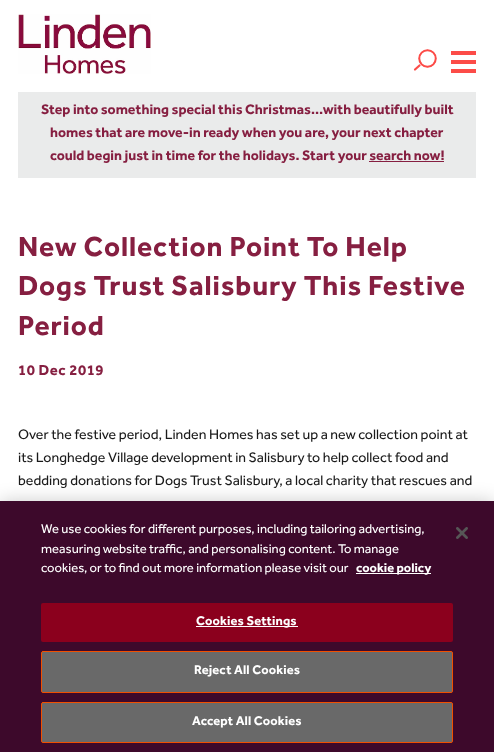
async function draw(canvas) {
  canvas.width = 494
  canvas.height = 752
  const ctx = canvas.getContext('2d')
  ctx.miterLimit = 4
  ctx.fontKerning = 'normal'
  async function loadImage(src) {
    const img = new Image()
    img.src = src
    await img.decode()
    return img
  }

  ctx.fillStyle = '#fff'
  ctx.fillRect(0, 0, 494, 752)
  ctx.drawImage(await loadImage('image0.png'), 18, 14, 133, 60)
  ctx.beginPath()
  ctx.arc(427.5, 58.5, 8.5, 0, 2 * Math.PI)
  ctx.strokeStyle = '#fc4c48'
  ctx.lineWidth = 1.5
  ctx.stroke()
  ctx.beginPath()
  ctx.arc(427.5, 58.5, 8, 0, 2 * Math.PI)
  ctx.stroke()
  ctx.beginPath()
  ctx.moveTo(419.5, 65.5)
  ctx.lineTo(415, 69.5)
  ctx.lineWidth = 2.2
  ctx.lineCap = 'round'
  ctx.stroke()
  ctx.fillStyle = '#fc4c48'
  ctx.fillRect(451, 60, 25, 4)
  ctx.fillRect(451, 51, 25, 4)
  ctx.fillRect(451, 69, 25, 4)
  ctx.fillStyle = '#eaebeb'
  ctx.fillRect(18, 92, 458, 86)
  ctx.font = 'bold 14.2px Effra'
  ctx.fillStyle = '#861f41'
  ctx.fillText('Step into something special this Christmas…with beautifully built', 41, 114)
  ctx.fillText('homes that are move-in ready when you are, your next chapter', 50, 137)
  ctx.fillText('could begin just in time for the holidays. Start your search now!', 50, 160)
  ctx.fillRect(369, 161, 75, 1)
  ctx.letterSpacing = '0.9px'
  ctx.font = 'bold 28.4px Effra'
  ctx.fillText('New Collection Point To Help', 18, 256)
  ctx.fillText('Dogs Trust Salisbury This Festive', 18, 295)
  ctx.fillText('Period', 18, 335)
  ctx.letterSpacing = '0.5px'
  ctx.font = 'bold 15px Effra'
  ctx.fillText('10 Dec 2019', 18, 375)
  ctx.letterSpacing = '0px'
  ctx.font = '14.2px Effra'
  ctx.fillStyle = '#1a1a1a'
  ctx.fillText('Over the festive period, Linden Homes has set up a new collection point at', 18, 439)
  ctx.fillText('its Longhedge Village development in Salisbury to help collect food and', 18, 462)
  ctx.fillText('bedding donations for Dogs Trust Salisbury, a local charity that rescues and', 18, 485)
  ctx.fillStyle = '#00000033'
  ctx.filter = 'blur(9px)'
  ctx.beginPath()
  ctx.rect(0, 501, 494, 251)
  ctx.fill()
  ctx.filter = 'none'
  ctx.fillStyle = '#3d092b'
  ctx.fillRect(0, 501, 494, 251)
  ctx.font = '13px Effra'
  ctx.fillStyle = '#fff'
  ctx.fillText('We use cookies for different purposes, including tailoring advertising,', 41, 533)
  ctx.fillText('measuring website traffic, and personalising content. To manage', 41, 553)
  ctx.fillText('cookies, or to find out more information please visit our', 41, 572)
  ctx.fillRect(356, 573, 75, 1)
  ctx.font = 'bold 13px Effra'
  ctx.fillText('cookie policy', 356, 572)
  ctx.fillStyle = '#8b001d'
  ctx.beginPath()
  ctx.roundRect(41, 603, 412, 39, 2)
  ctx.fill()
  ctx.fillStyle = '#fff'
  ctx.fillRect(196, 626, 102, 1)
  ctx.letterSpacing = '0.1px'
  ctx.fillText('Cookies Settings', 196, 625)
  ctx.fillStyle = '#696969'
  ctx.beginPath()
  ctx.roundRect(41.5, 651.5, 411, 41, 1.5)
  ctx.fill()
  ctx.strokeStyle = '#f05000'
  ctx.lineWidth = 1
  ctx.stroke()
  ctx.fillStyle = '#fff'
  ctx.fillText('Reject All Cookies', 194, 674)
  ctx.fillStyle = '#696969'
  ctx.beginPath()
  ctx.roundRect(41.5, 702.5, 411, 40, 1.5)
  ctx.fill()
  ctx.stroke()
  ctx.fillStyle = '#fff'
  ctx.fillText('Accept All Cookies', 192, 725)
  ctx.drawImage(await loadImage('image1.png'), 456, 527, 12, 12)
}

draw(document.querySelector('canvas'))
